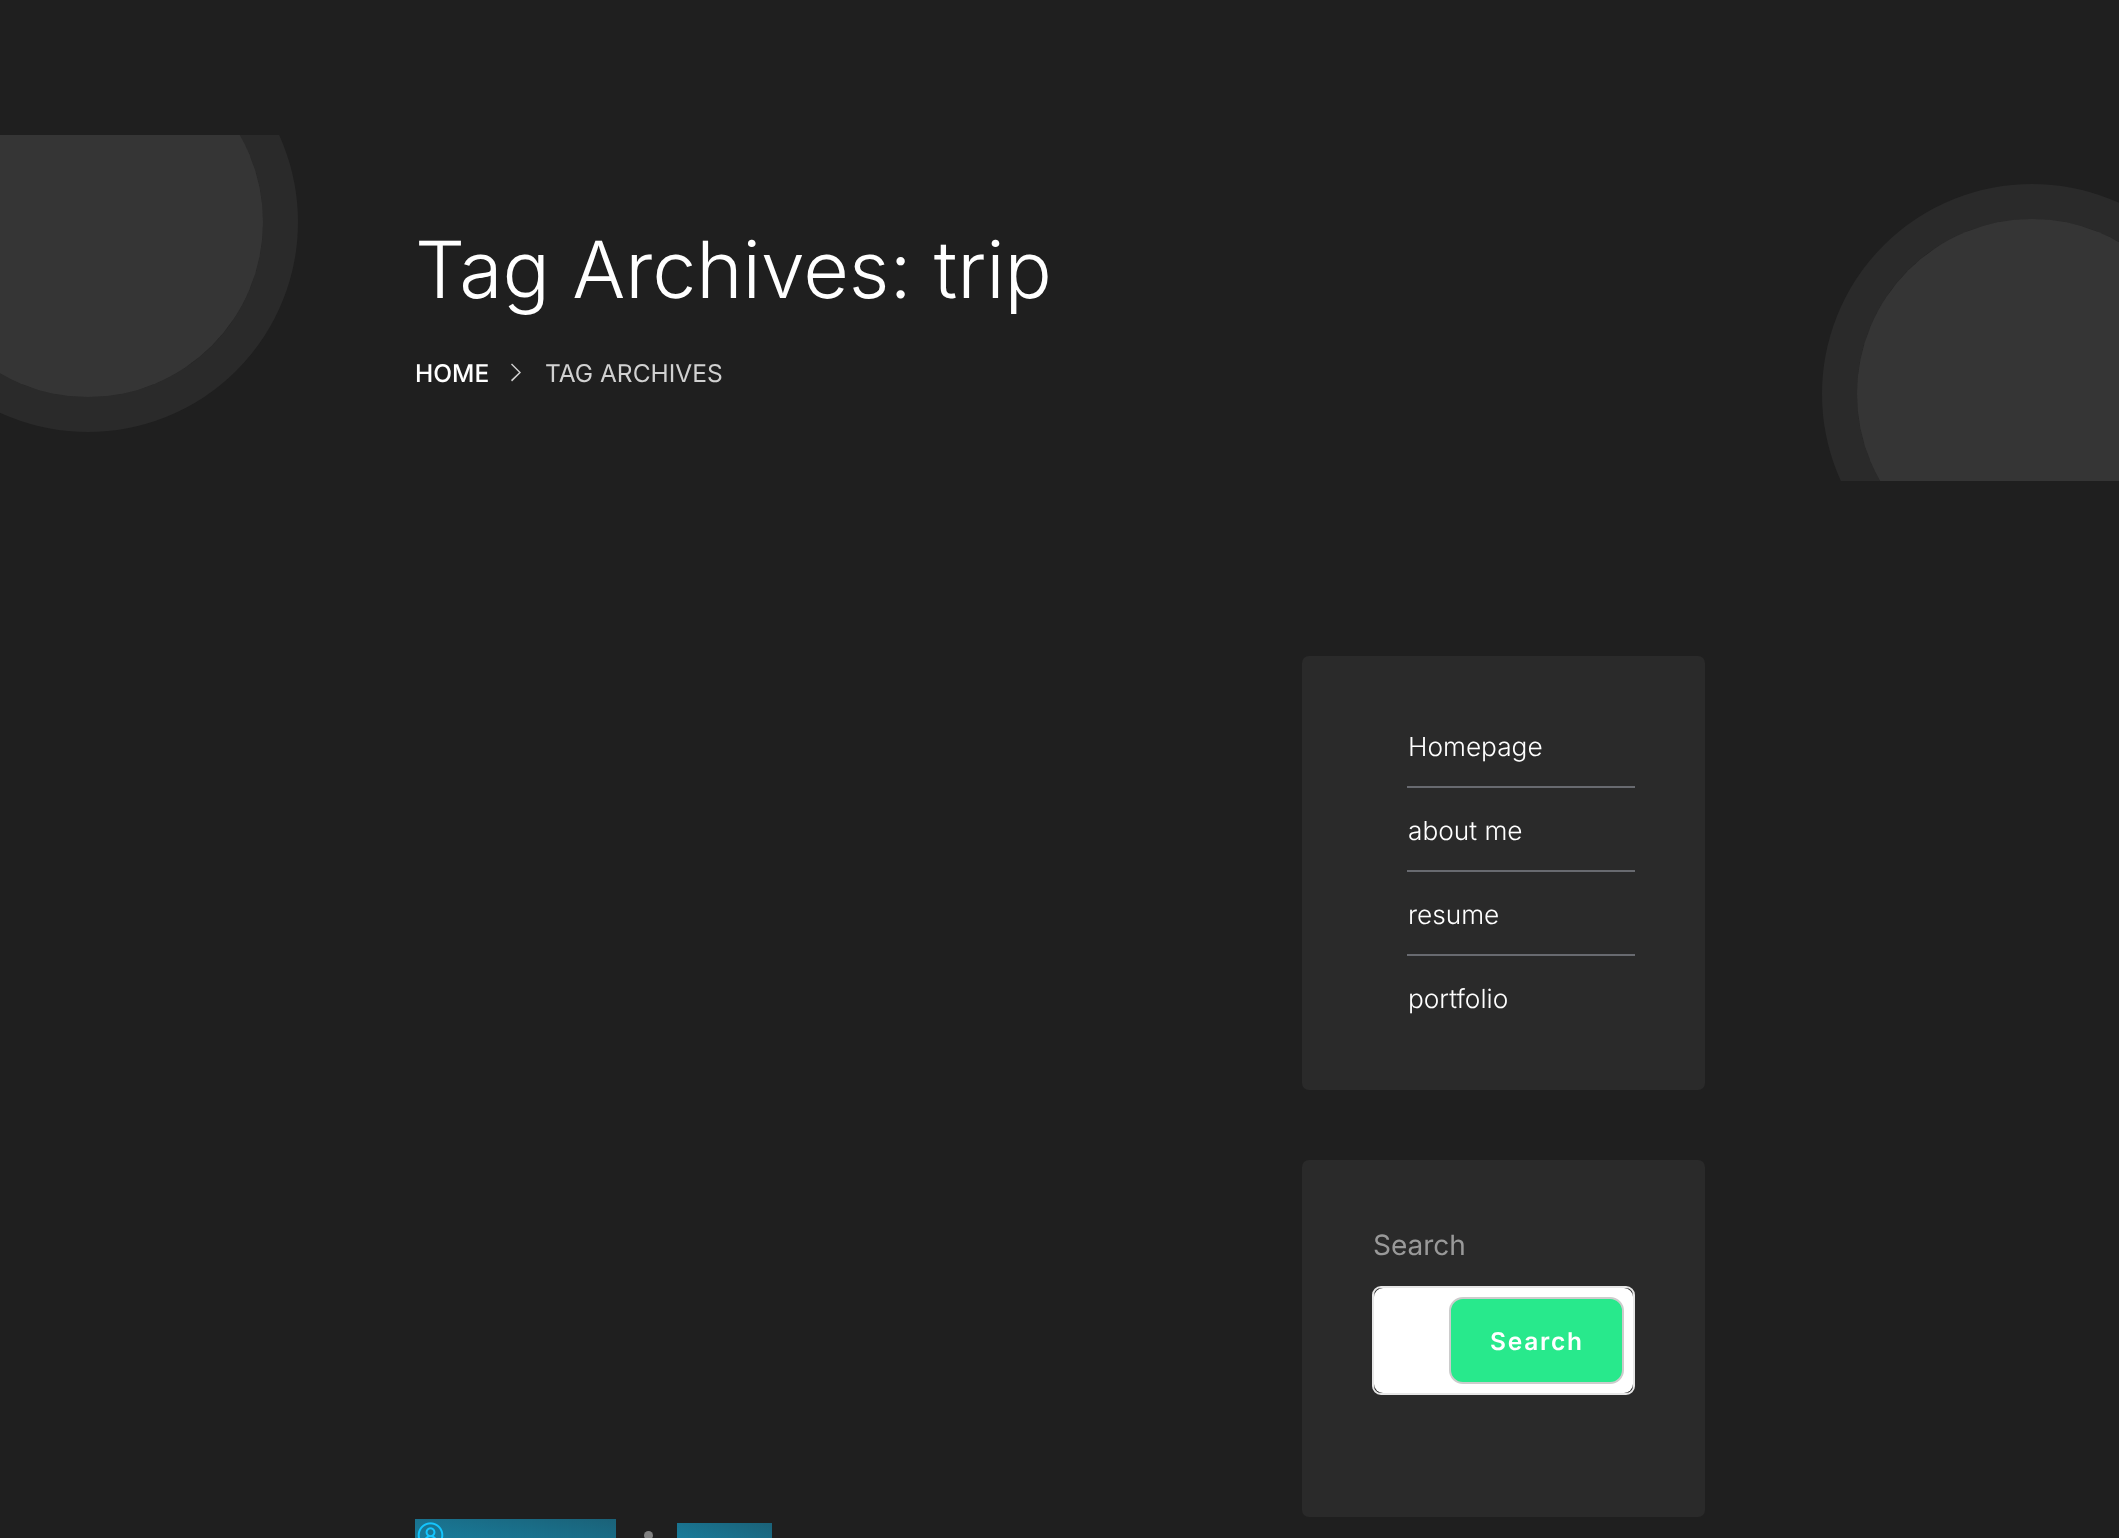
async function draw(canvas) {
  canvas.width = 2119
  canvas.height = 1538
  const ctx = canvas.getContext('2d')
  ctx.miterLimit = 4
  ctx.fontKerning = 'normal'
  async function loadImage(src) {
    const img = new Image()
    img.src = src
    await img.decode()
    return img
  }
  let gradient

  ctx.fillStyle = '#1f1f1f'
  ctx.fillRect(0, 0, 2119, 1538)
  ctx.save()
  ctx.beginPath()
  ctx.rect(0, 135, 2119, 346)
  ctx.clip()
  ctx.beginPath()
  ctx.arc(88, 222, 192.5, 0, 2 * Math.PI)
  ctx.strokeStyle = '#2a2a2a'
  ctx.lineWidth = 35
  ctx.stroke()
  ctx.fillStyle = '#ffffff1a'
  ctx.beginPath()
  ctx.arc(88, 222, 175, 0, 2 * Math.PI)
  ctx.fill()
  ctx.restore()
  ctx.font = '300 78.75px Inter'
  ctx.fillStyle = '#fff'
  ctx.fillText('Tag Archives: trip', 415, 298)
  ctx.font = '500 24.5px Inter'
  ctx.fillText('HOME', 415, 382)
  ctx.fillStyle = '#d1d1d1'
  ctx.beginPath()
  ctx.moveTo(512, 363.5)
  ctx.lineTo(511, 364.5)
  ctx.lineTo(519, 372.5)
  ctx.lineTo(511, 380)
  ctx.lineTo(512, 381.5)
  ctx.lineTo(521, 372.5)
  ctx.closePath()
  ctx.fill()
  ctx.font = '24.5px Inter'
  ctx.fillText('TAG ARCHIVES', 545, 382)
  ctx.save()
  ctx.beginPath()
  ctx.rect(0, 135, 2119, 346)
  ctx.clip()
  ctx.beginPath()
  ctx.arc(2032, 394, 192.5, 0, 2 * Math.PI)
  ctx.strokeStyle = '#2a2a2a'
  ctx.lineWidth = 35
  ctx.stroke()
  ctx.fillStyle = '#ffffff1a'
  ctx.beginPath()
  ctx.arc(2032, 394, 175, 0, 2 * Math.PI)
  ctx.fill()
  ctx.restore()
  ctx.fillStyle = '#2a2a2a'
  ctx.beginPath()
  ctx.roundRect(1302, 656, 403, 434, 7)
  ctx.fill()
  ctx.fillStyle = '#686a70'
  ctx.fillRect(1407, 786, 228, 2)
  ctx.font = '300 26.25px Inter'
  ctx.fillStyle = '#fff'
  ctx.fillText('Homepage', 1408, 756)
  ctx.fillStyle = '#686a70'
  ctx.fillRect(1407, 870, 228, 2)
  ctx.fillStyle = '#fff'
  ctx.fillText('about me', 1408, 840)
  ctx.fillStyle = '#686a70'
  ctx.fillRect(1407, 954, 228, 2)
  ctx.fillStyle = '#fff'
  ctx.fillText('resume', 1408, 924)
  ctx.fillText('portfolio', 1408, 1008)
  ctx.fillStyle = '#2a2a2a'
  ctx.beginPath()
  ctx.roundRect(1302, 1160, 403, 357, 7)
  ctx.fill()
  ctx.font = '28px Inter'
  ctx.fillStyle = '#999'
  ctx.fillText('Search', 1373, 1255)
  ctx.beginPath()
  ctx.roundRect(1373, 1287, 261, 107, 8)
  ctx.strokeStyle = '#e7e7e7'
  ctx.lineWidth = 2
  ctx.stroke()
  ctx.fillStyle = '#fff'
  ctx.beginPath()
  ctx.roundRect(1374, 1288, 259, 105, 9)
  ctx.fill()
  ctx.fillStyle = '#28e98c'
  ctx.beginPath()
  ctx.roundRect(1450, 1298, 173, 85, 13)
  ctx.fill()
  ctx.strokeStyle = '#ccc'
  ctx.stroke()
  ctx.letterSpacing = '1.75px'
  ctx.font = '600 24.5px Inter'
  ctx.fillStyle = '#fff'
  ctx.fillText('Search', 1490, 1350)
  gradient = ctx.createLinearGradient(489, 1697, 542, 1374)
  gradient.addColorStop(0, '#14c5fd')
  gradient.addColorStop(1, '#1f1f1f')
  ctx.fillStyle = gradient
  ctx.fillRect(415, 1519, 201, 19)
  ctx.drawImage(await loadImage('image0.png'), 417, 1522, 27, 16)
  ctx.fillStyle = '#808080'
  ctx.beginPath()
  ctx.arc(648.5, 1535.5, 4.5, 0, 2 * Math.PI)
  ctx.fill()
  gradient = ctx.createLinearGradient(682, 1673, 767, 1402)
  gradient.addColorStop(0, '#14c5fd')
  gradient.addColorStop(1, '#1f1f1f')
  ctx.fillStyle = gradient
  ctx.fillRect(677, 1523, 95, 15)
}

draw(document.querySelector('canvas'))
